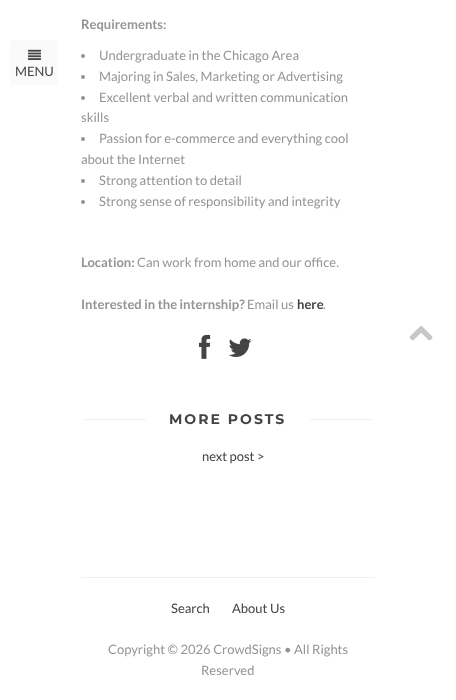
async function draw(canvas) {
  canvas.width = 456
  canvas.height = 700
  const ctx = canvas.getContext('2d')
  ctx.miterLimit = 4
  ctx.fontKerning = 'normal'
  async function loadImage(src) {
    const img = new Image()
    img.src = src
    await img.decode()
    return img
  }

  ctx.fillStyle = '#fff'
  ctx.fillRect(0, 0, 456, 700)
  ctx.fillStyle = '#fafafa'
  ctx.beginPath()
  ctx.roundRect(10, 40, 48, 45, 3)
  ctx.fill()
  ctx.drawImage(await loadImage('image0.png'), 28, 49, 13, 11)
  ctx.font = '13px Lato'
  ctx.fillStyle = '#444'
  ctx.fillText('MENU', 15, 76)
  ctx.font = 'bold 13px Lato'
  ctx.fillStyle = '#949494'
  ctx.fillText('Requirements:', 81, 29)
  ctx.beginPath()
  ctx.arc(83, 56, 2, 0, 2 * Math.PI)
  ctx.fill()
  ctx.font = '13px Lato'
  ctx.fillText('Undergraduate in the Chicago Area', 99, 60)
  ctx.beginPath()
  ctx.arc(83, 77, 2, 0, 2 * Math.PI)
  ctx.fill()
  ctx.fillText('Majoring in Sales, Marketing or Advertising', 99, 81)
  ctx.beginPath()
  ctx.arc(83, 98, 2, 0, 2 * Math.PI)
  ctx.fill()
  ctx.fillText('Excellent verbal and written communication', 99, 102)
  ctx.fillText('skills', 81, 122)
  ctx.beginPath()
  ctx.arc(83, 139, 2, 0, 2 * Math.PI)
  ctx.fill()
  ctx.fillText('Passion for e-commerce and everything cool', 99, 143)
  ctx.fillText('about the Internet', 81, 164)
  ctx.beginPath()
  ctx.arc(83, 181, 2, 0, 2 * Math.PI)
  ctx.fill()
  ctx.fillText('Strong attention to detail', 99, 185)
  ctx.beginPath()
  ctx.arc(83, 202, 2, 0, 2 * Math.PI)
  ctx.fill()
  ctx.fillText('Strong sense of responsibility and integrity', 99, 206)
  ctx.font = 'bold 13px Lato'
  ctx.fillText('Location:', 81, 267)
  ctx.font = '13px Lato'
  ctx.fillText('Can work from home and our office.', 137, 267)
  ctx.font = 'bold 13px Lato'
  ctx.fillText('Interested in the internship?', 81, 309)
  ctx.font = '13px Lato'
  ctx.fillText('Email us', 247, 309)
  ctx.font = 'bold 13px Lato'
  ctx.fillStyle = '#444'
  ctx.fillText('here', 297, 309)
  ctx.font = '13px Lato'
  ctx.fillStyle = '#949494'
  ctx.fillText('.', 323, 309)
  ctx.drawImage(await loadImage('image1.png'), 199, 334, 12, 25)
  ctx.drawImage(await loadImage('image2.png'), 228, 338, 24, 19)
  ctx.fillStyle = '#f0f0f0'
  ctx.fillRect(84, 419, 288, 1)
  ctx.fillStyle = '#fff'
  ctx.fillRect(146, 419, 164, 1)
  ctx.letterSpacing = '2px'
  ctx.font = 'bold 14px Montserrat'
  ctx.fillStyle = '#444'
  ctx.fillText('MORE POSTS', 169, 424)
  ctx.letterSpacing = '0px'
  ctx.font = '13px Lato'
  ctx.fillText('next post >', 202, 461)
  ctx.drawImage(await loadImage('image3.png'), 409, 326, 24, 15)
  ctx.fillStyle = '#f0f0f0'
  ctx.fillRect(81, 577, 294, 1)
  ctx.fillStyle = '#444'
  ctx.fillText('Search', 171, 613)
  ctx.fillText('About Us', 232, 613)
  ctx.fillStyle = '#949494'
  ctx.fillText('Copyright © 2026 CrowdSigns • All Rights', 108, 654)
  ctx.fillText('Reserved', 201, 675)
}

draw(document.querySelector('canvas'))
